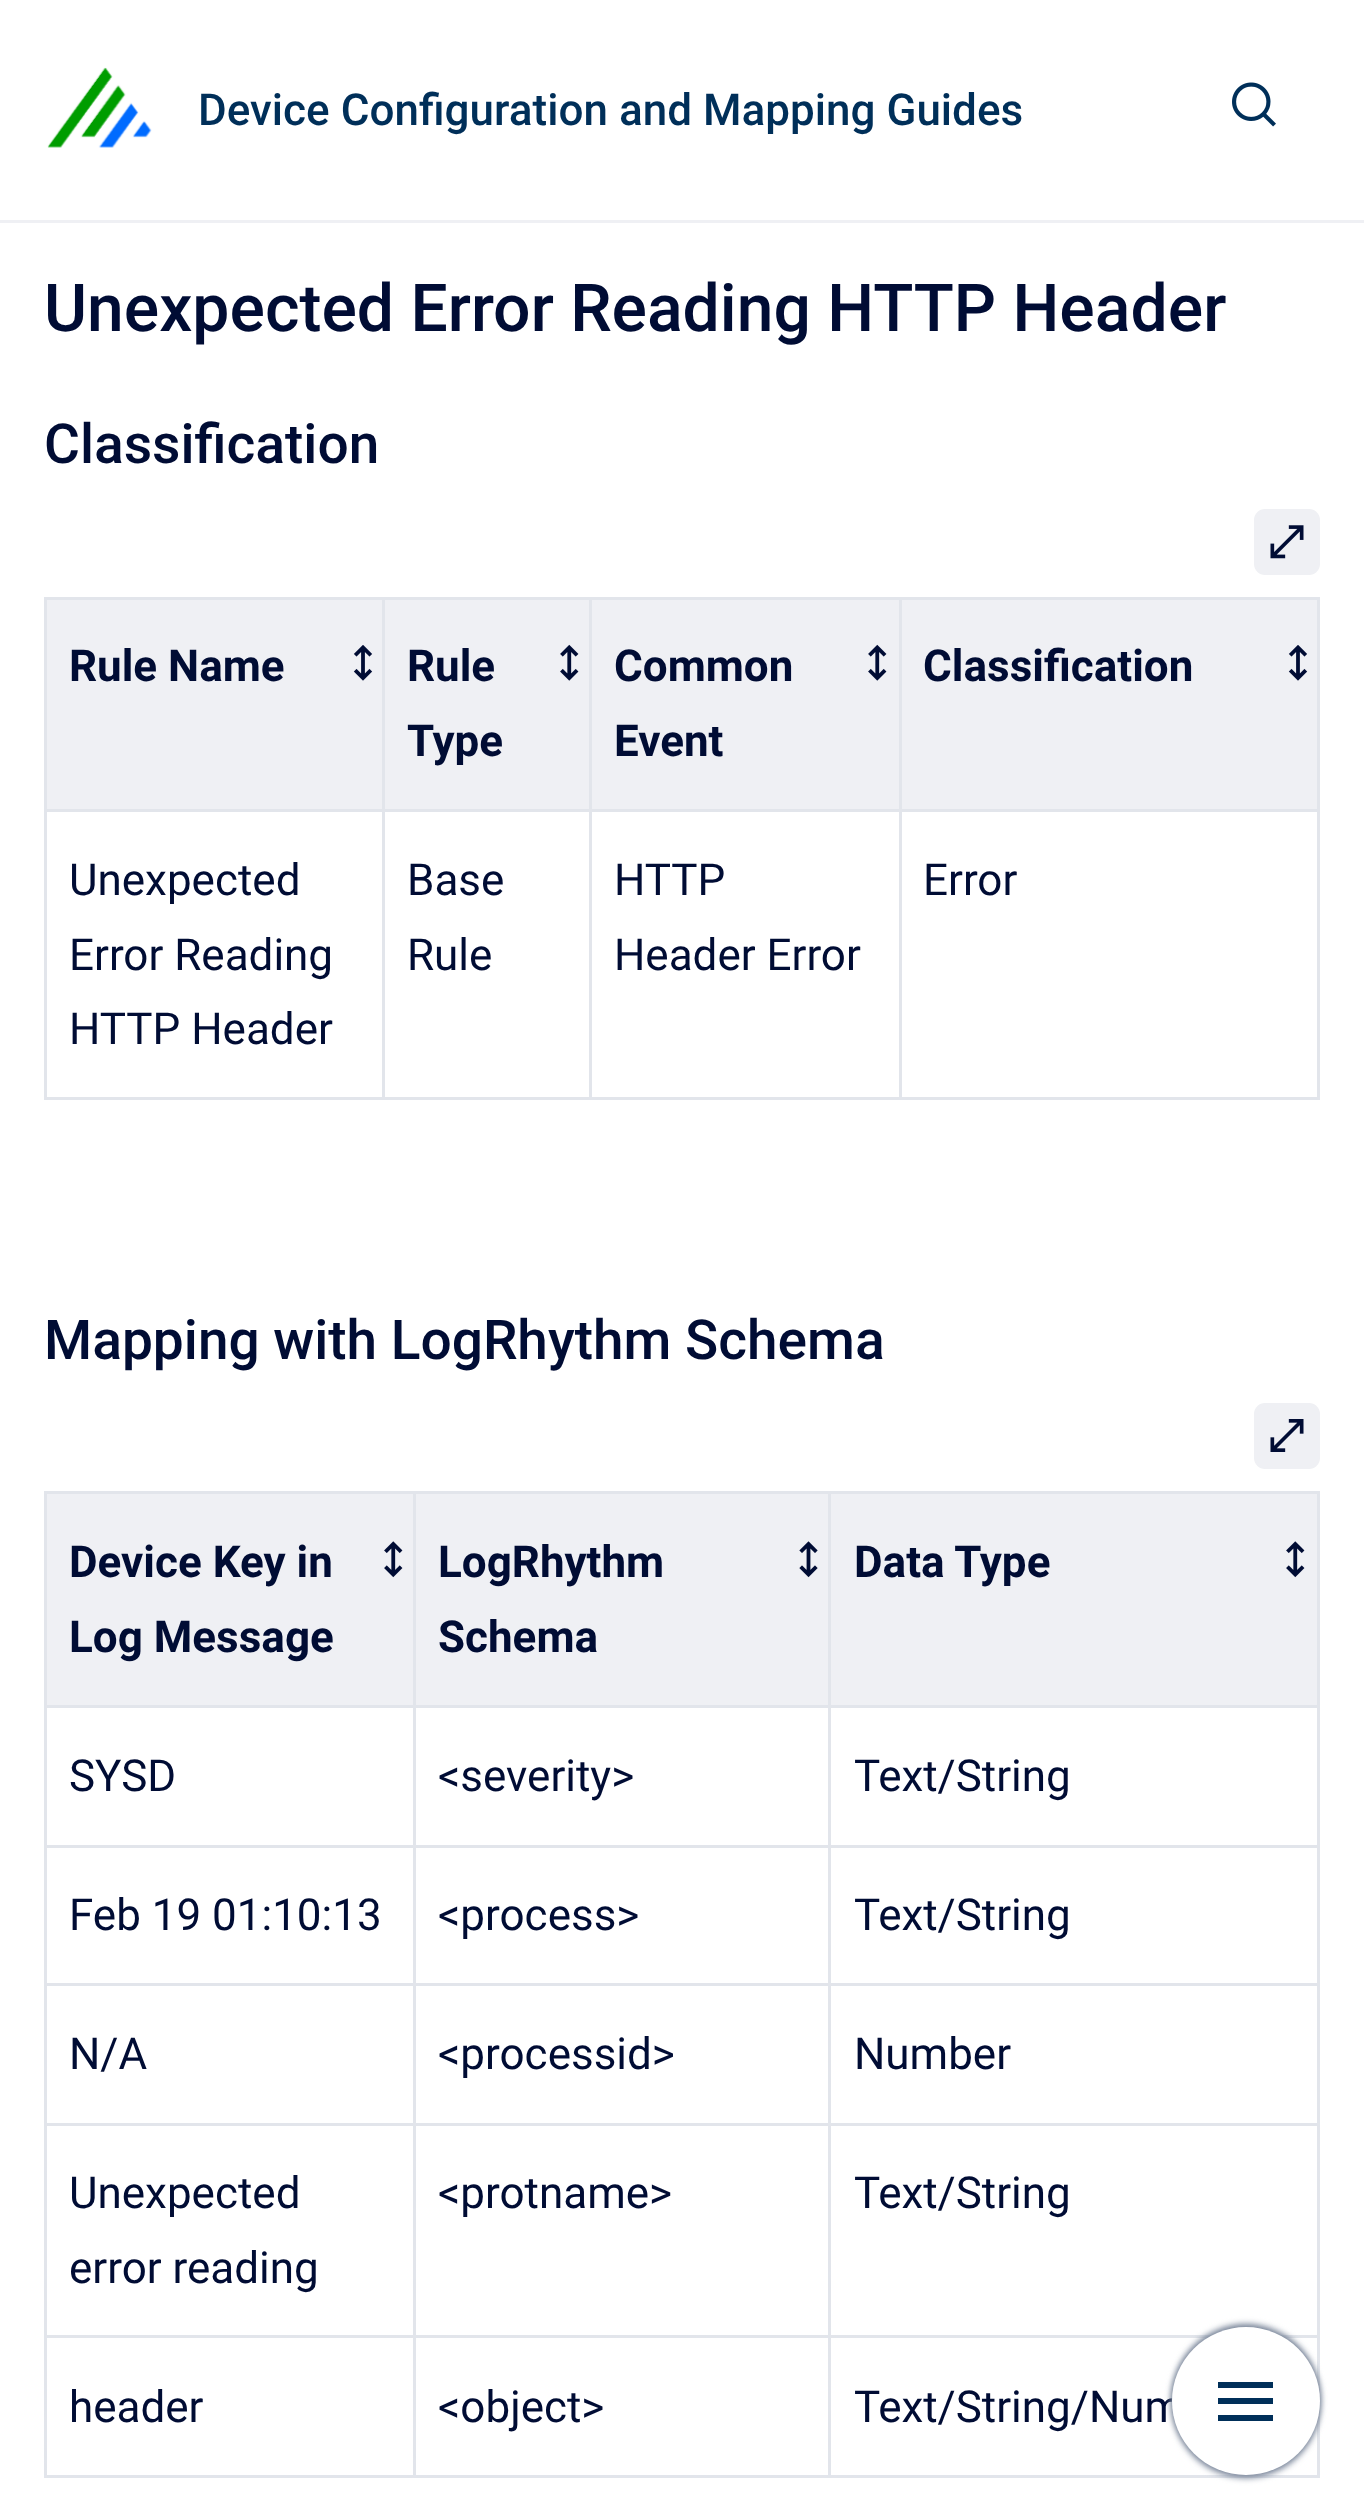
async function draw(canvas) {
  canvas.width = 1364
  canvas.height = 2517
  const ctx = canvas.getContext('2d')
  ctx.miterLimit = 4
  ctx.fontKerning = 'normal'
  async function loadImage(src) {
    const img = new Image()
    img.src = src
    await img.decode()
    return img
  }

  ctx.fillStyle = '#fff'
  ctx.fillRect(0, 0, 1364, 2517)
  ctx.fillStyle = '#eff0f4'
  ctx.fillRect(0, 220, 1364, 3)
  ctx.drawImage(await loadImage('image0.png'), 47, 67, 105, 81)
  ctx.font = '500 44px Roboto'
  ctx.fillStyle = '#002f59'
  ctx.fillText('Device Configuration and Mapping Guides', 198, 125)
  ctx.drawImage(await loadImage('image1.png'), 1232, 82, 44, 45)
  ctx.font = '500 66px Roboto'
  ctx.fillStyle = '#000c34'
  ctx.fillText('Unexpected Error Reading HTTP Header', 44, 331)
  ctx.font = '500 55px Roboto'
  ctx.fillText('Classification', 44, 463)
  ctx.fillStyle = '#eff0f4'
  ctx.beginPath()
  ctx.roundRect(1255.5, 510.5, 63, 63, 9.5)
  ctx.fill()
  ctx.strokeStyle = '#eff0f4'
  ctx.lineWidth = 3
  ctx.stroke()
  ctx.drawImage(await loadImage('image2.png'), 1270, 525, 34, 34)
  ctx.fillStyle = '#e2e5eb'
  ctx.fillRect(44, 597, 1276, 3)
  ctx.fillRect(1317, 597, 3, 503)
  ctx.fillRect(44, 1097, 1276, 3)
  ctx.fillRect(44, 597, 3, 503)
  ctx.fillStyle = '#eff0f4'
  ctx.fillRect(47, 600, 335, 209)
  ctx.drawImage(await loadImage('image3.png'), 353, 645, 20, 36)
  ctx.font = 'bold 44px Roboto'
  ctx.fillStyle = '#000c34'
  ctx.fillText('Rule Name', 69, 681)
  ctx.fillStyle = '#eff0f4'
  ctx.fillRect(385, 600, 204, 209)
  ctx.drawImage(await loadImage('image4.png'), 560, 644, 19, 37)
  ctx.fillStyle = '#e2e5eb'
  ctx.fillRect(899, 809, 421, 3)
  ctx.fillRect(899, 809, 3, 291)
  ctx.fillRect(589, 809, 313, 3)
  ctx.fillRect(589, 809, 3, 291)
  ctx.fillRect(382, 809, 209, 3)
  ctx.fillRect(382, 809, 3, 291)
  ctx.fillRect(44, 809, 341, 3)
  ctx.fillRect(382, 597, 3, 214)
  ctx.fillStyle = '#000c34'
  ctx.fillText('Rule', 407, 681)
  ctx.fillText('Type', 407, 756)
  ctx.fillStyle = '#eff0f4'
  ctx.fillRect(592, 600, 307, 209)
  ctx.drawImage(await loadImage('image4.png'), 868, 644, 19, 37)
  ctx.fillStyle = '#e2e5eb'
  ctx.fillRect(589, 597, 3, 214)
  ctx.fillStyle = '#000c34'
  ctx.fillText('Common', 614, 681)
  ctx.fillText('Event', 614, 756)
  ctx.fillStyle = '#eff0f4'
  ctx.fillRect(902, 600, 415, 209)
  ctx.drawImage(await loadImage('image3.png'), 1288, 645, 20, 36)
  ctx.fillStyle = '#e2e5eb'
  ctx.fillRect(899, 597, 3, 214)
  ctx.fillStyle = '#000c34'
  ctx.fillText('Classification', 923, 681)
  ctx.font = '44px Roboto'
  ctx.fillText('Unexpected', 69, 895)
  ctx.fillText('Error Reading', 69, 970)
  ctx.fillText('HTTP Header', 69, 1044)
  ctx.fillText('Base', 407, 895)
  ctx.fillText('Rule', 407, 970)
  ctx.fillText('HTTP', 614, 895)
  ctx.fillText('Header Error', 614, 970)
  ctx.fillText('Error', 923, 895)
  ctx.font = '500 55px Roboto'
  ctx.fillText('Mapping with LogRhythm Schema', 44, 1359)
  ctx.fillStyle = '#eff0f4'
  ctx.beginPath()
  ctx.roundRect(1255.5, 1404.5, 63, 63, 9.5)
  ctx.fill()
  ctx.stroke()
  ctx.drawImage(await loadImage('image5.png'), 1270, 1419, 34, 33)
  ctx.fillStyle = '#e2e5eb'
  ctx.fillRect(44, 1491, 1276, 3)
  ctx.fillRect(1317, 1491, 3, 987)
  ctx.fillRect(44, 2475, 1276, 3)
  ctx.fillRect(44, 1491, 3, 987)
  ctx.fillStyle = '#eff0f4'
  ctx.fillRect(47, 1494, 366, 211)
  ctx.drawImage(await loadImage('image6.png'), 384, 1541, 19, 37)
  ctx.font = 'bold 44px Roboto'
  ctx.fillStyle = '#000c34'
  ctx.fillText('Device Key in', 69, 1577)
  ctx.fillText('Log Message', 69, 1652)
  ctx.fillStyle = '#eff0f4'
  ctx.fillRect(416, 1494, 412, 211)
  ctx.drawImage(await loadImage('image7.png'), 799, 1541, 19, 37)
  ctx.fillStyle = '#e2e5eb'
  ctx.fillRect(828, 1705, 492, 3)
  ctx.fillRect(828, 1845, 492, 3)
  ctx.fillRect(828, 1983, 492, 3)
  ctx.fillRect(828, 2123, 492, 3)
  ctx.fillRect(828, 2335, 492, 3)
  ctx.fillRect(828, 2335, 3, 143)
  ctx.fillRect(413, 2335, 418, 3)
  ctx.fillRect(828, 2123, 3, 215)
  ctx.fillRect(413, 2123, 418, 3)
  ctx.fillRect(828, 1983, 3, 143)
  ctx.fillRect(413, 1983, 418, 3)
  ctx.fillRect(828, 1845, 3, 141)
  ctx.fillRect(413, 1845, 418, 3)
  ctx.fillRect(828, 1705, 3, 143)
  ctx.fillRect(413, 1705, 418, 3)
  ctx.fillRect(413, 2335, 3, 143)
  ctx.fillRect(44, 2335, 371, 3)
  ctx.fillRect(413, 2123, 3, 215)
  ctx.fillRect(44, 2123, 371, 3)
  ctx.fillRect(413, 1983, 3, 143)
  ctx.fillRect(44, 1983, 371, 3)
  ctx.fillRect(413, 1845, 3, 141)
  ctx.fillRect(44, 1845, 371, 3)
  ctx.fillRect(413, 1705, 3, 143)
  ctx.fillRect(44, 1705, 371, 3)
  ctx.fillRect(413, 1491, 3, 217)
  ctx.fillStyle = '#000c34'
  ctx.fillText('LogRhythm', 438, 1577)
  ctx.fillText('Schema', 438, 1652)
  ctx.fillStyle = '#eff0f4'
  ctx.fillRect(831, 1494, 486, 211)
  ctx.drawImage(await loadImage('image6.png'), 1286, 1541, 19, 37)
  ctx.fillStyle = '#e2e5eb'
  ctx.fillRect(828, 1491, 3, 217)
  ctx.fillStyle = '#000c34'
  ctx.fillText('Data Type', 854, 1577)
  ctx.font = '44px Roboto'
  ctx.fillText('SYSD', 69, 1791)
  ctx.fillText('<severity>', 438, 1791)
  ctx.fillText('Text/String', 854, 1791)
  ctx.fillText('Feb 19 01:10:13', 69, 1930)
  ctx.fillText('<process>', 438, 1930)
  ctx.fillText('Text/String', 854, 1930)
  ctx.fillText('N/A', 69, 2069)
  ctx.fillText('<processid>', 438, 2069)
  ctx.fillText('Number', 854, 2069)
  ctx.fillText('Unexpected', 69, 2208)
  ctx.fillText('error reading', 69, 2283)
  ctx.fillText('<protname>', 438, 2208)
  ctx.fillText('Text/String', 854, 2208)
  ctx.fillText('header', 69, 2422)
  ctx.fillText('<object>', 438, 2422)
  ctx.fillText('Text/String/Num', 854, 2422)
  ctx.fillStyle = '#7a869a'
  ctx.filter = 'blur(3px)'
  ctx.beginPath()
  ctx.roundRect(1172, 2324, 148, 148, 74)
  ctx.fill()
  ctx.filter = 'none'
  ctx.filter = 'blur(3px)'
  ctx.beginPath()
  ctx.roundRect(1172, 2329, 148, 149, 74)
  ctx.fill()
  ctx.filter = 'none'
  ctx.fillStyle = '#fff'
  ctx.beginPath()
  ctx.arc(1246, 2401, 74, 0, 2 * Math.PI)
  ctx.fill()
  ctx.fillStyle = '#002f59'
  ctx.fillRect(1218, 2382, 55, 6)
  ctx.fillRect(1218, 2398, 55, 6)
  ctx.fillRect(1218, 2415, 55, 6)
}

draw(document.querySelector('canvas'))
